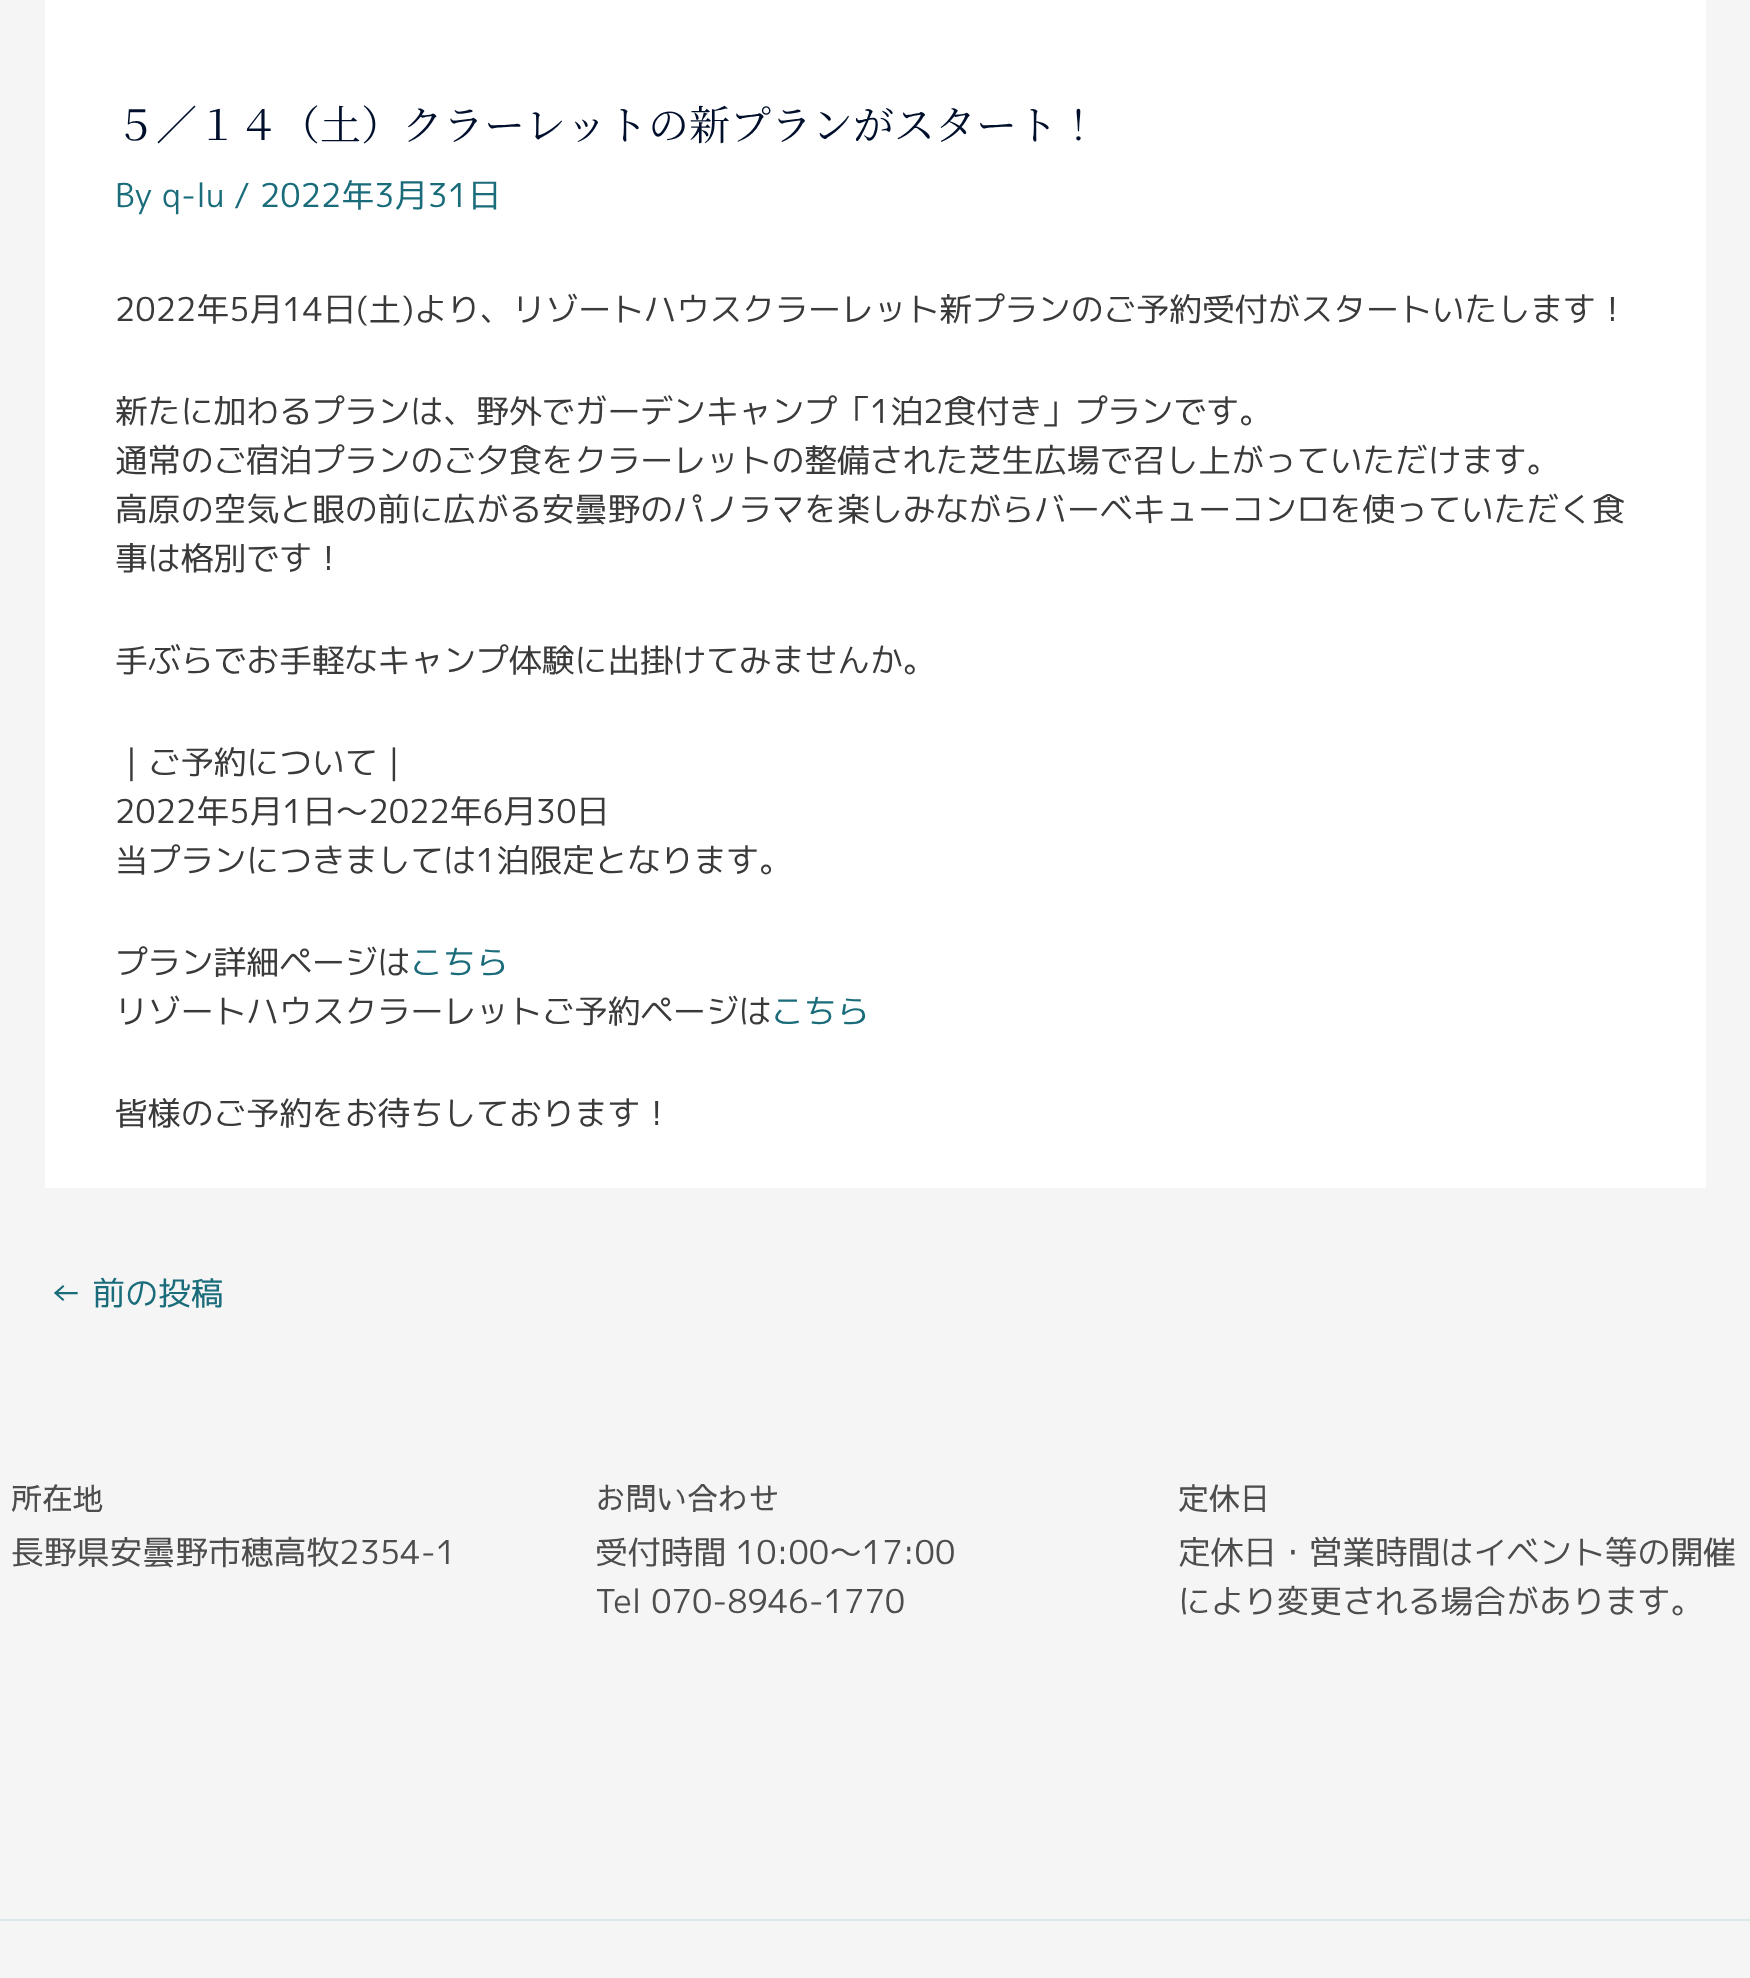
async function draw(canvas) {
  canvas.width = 1750
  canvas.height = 1978
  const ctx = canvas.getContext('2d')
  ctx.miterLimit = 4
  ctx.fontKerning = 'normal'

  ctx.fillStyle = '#f5f5f5'
  ctx.fillRect(0, 0, 1750, 1978)
  ctx.fillStyle = '#fff'
  ctx.fillRect(45, 0, 1661, 1188)
  ctx.font = '200 41px Noto Serif JP'
  ctx.fillStyle = '#000f2b'
  ctx.fillText('５／１４（土）クラーレットの新プランがスタート！', 115, 140)
  ctx.font = '32.85px "M PLUS 1p"'
  ctx.fillStyle = '#1a6c7a'
  ctx.fillText('By q-lu / 2022年3月31日', 115, 207)
  ctx.fillStyle = '#3a3a3a'
  ctx.fillText('2022年5月14日(土)より、リゾートハウスクラーレット新プランのご予約受付がスタートいたします！', 115, 321)
  ctx.fillText('新たに加わるプランは、野外でガーデンキャンプ「1泊2食付き」プランです。', 115, 423)
  ctx.fillText('通常のご宿泊プランのご夕食をクラーレットの整備された芝生広場で召し上がっていただけます。', 115, 472)
  ctx.fillText('高原の空気と眼の前に広がる安曇野のパノラマを楽しみながらバーベキューコンロを使っていただく食', 115, 521)
  ctx.fillText('事は格別です！', 115, 570)
  ctx.fillText('手ぶらでお手軽なキャンプ体験に出掛けてみませんか。', 115, 672)
  ctx.fillText('｜ご予約について｜', 115, 774)
  ctx.fillText('2022年5月1日～2022年6月30日', 115, 823)
  ctx.fillText('当プランにつきましては1泊限定となります。', 115, 872)
  ctx.fillText('プラン詳細ページは', 115, 974)
  ctx.fillStyle = '#1a6c7a'
  ctx.fillText('こちら', 410, 974)
  ctx.fillStyle = '#3a3a3a'
  ctx.fillText('リゾートハウスクラーレットご予約ページは', 115, 1023)
  ctx.fillStyle = '#1a6c7a'
  ctx.fillText('こちら', 771, 1023)
  ctx.fillStyle = '#3a3a3a'
  ctx.fillText('皆様のご予約をお待ちしております！', 115, 1125)
  ctx.fillStyle = '#1a6c7a'
  ctx.fillText('← 前の投稿', 50, 1305)
  ctx.font = '30.75px Sawarabi Gothic'
  ctx.fillStyle = '#4d4d4d'
  ctx.fillText('所在地', 11, 1510)
  ctx.font = '32.85px "M PLUS 1p"'
  ctx.fillText('長野県安曇野市穂高牧2354-1', 11, 1564)
  ctx.font = '30.75px Sawarabi Gothic'
  ctx.fillText('お問い合わせ', 595, 1510)
  ctx.font = '32.85px "M PLUS 1p"'
  ctx.fillText('受付時間 10:00～17:00', 595, 1564)
  ctx.fillText('Tel 070-8946-1770', 595, 1613)
  ctx.font = '30.75px Sawarabi Gothic'
  ctx.fillText('定休日', 1178, 1510)
  ctx.font = '32.85px "M PLUS 1p"'
  ctx.fillText('定休日・営業時間はイベント等の開催', 1178, 1564)
  ctx.fillText('により変更される場合があります。', 1178, 1613)
  ctx.fillStyle = '#dbe8eb'
  ctx.fillRect(0, 1919, 1750, 2)
}

draw(document.querySelector('canvas'))
